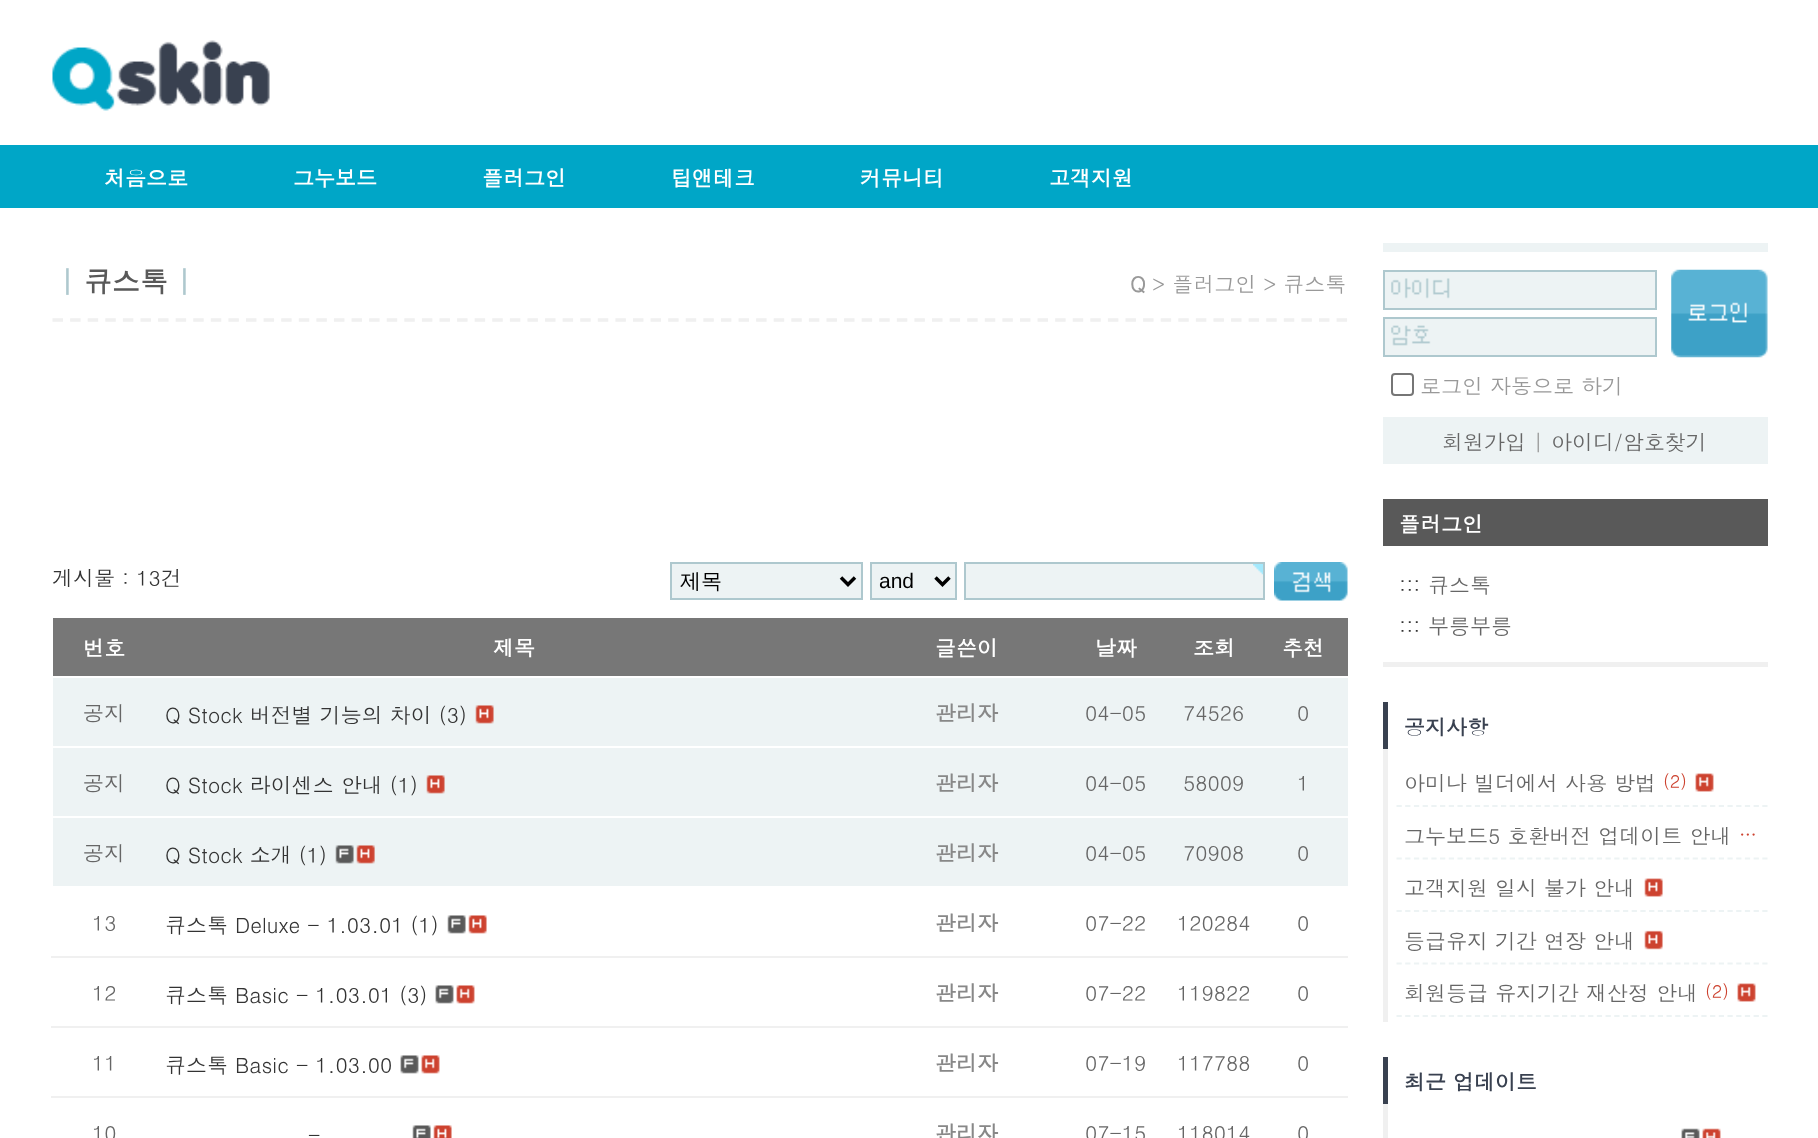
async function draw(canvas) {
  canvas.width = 1818
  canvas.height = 1138
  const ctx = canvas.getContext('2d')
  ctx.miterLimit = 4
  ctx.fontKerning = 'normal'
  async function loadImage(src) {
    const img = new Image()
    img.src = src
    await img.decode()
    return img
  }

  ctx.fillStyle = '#fff'
  ctx.fillRect(0, 0, 1818, 1138)
  ctx.drawImage(await loadImage('image0.png'), 52, 40, 218, 71)
  ctx.fillStyle = '#00a6c7'
  ctx.fillRect(0, 145, 1818, 63)
  ctx.font = 'bold 21px Dotum'
  ctx.fillStyle = '#fff'
  ctx.fillText('처음으로', 104, 186)
  ctx.fillText('그누보드', 293, 186)
  ctx.fillText('플러그인', 482, 186)
  ctx.fillText('팁앤테크', 671, 186)
  ctx.fillText('커뮤니티', 860, 186)
  ctx.fillText('고객지원', 1049, 186)
  ctx.beginPath()
  ctx.moveTo(52.5, 320)
  ctx.lineTo(1347.5, 320)
  ctx.strokeStyle = '#f0f0f0'
  ctx.lineWidth = 3.5
  ctx.setLineDash([10.5, 7.09])
  ctx.stroke()
  ctx.font = 'bold 28px Dotum'
  ctx.fillStyle = '#aec8ce'
  ctx.fillText('|', 60, 292)
  ctx.fillStyle = '#595959'
  ctx.fillText('큐스톡', 84, 292)
  ctx.fillStyle = '#aec8ce'
  ctx.fillText('|', 177, 292)
  ctx.font = 'bold 21px Dotum'
  ctx.fillStyle = '#999'
  ctx.fillText('Q', 1130, 292)
  ctx.font = '21px Dotum'
  ctx.fillText('> 플러그인 > 큐스톡', 1152, 292)
  ctx.fillStyle = '#333'
  ctx.fillText('게시물 : 13건', 52, 586)
  ctx.fillStyle = '#edf3f4'
  ctx.beginPath()
  ctx.rect(671, 563, 191, 36)
  ctx.fill()
  ctx.strokeStyle = '#aec8ce'
  ctx.lineWidth = 2
  ctx.setLineDash([])
  ctx.stroke()
  ctx.beginPath()
  ctx.moveTo(841, 577.5)
  ctx.lineTo(848, 584.5)
  ctx.lineTo(855, 577.5)
  ctx.strokeStyle = '#000'
  ctx.lineWidth = 3.5
  ctx.stroke()
  ctx.font = '500 21px WenQuanYi Zen Hei'
  ctx.fillStyle = '#000'
  ctx.fillText('제목', 680, 588)
  ctx.fillStyle = '#edf3f4'
  ctx.beginPath()
  ctx.rect(871, 563, 85, 36)
  ctx.fill()
  ctx.strokeStyle = '#aec8ce'
  ctx.lineWidth = 2
  ctx.stroke()
  ctx.beginPath()
  ctx.moveTo(935.5, 577.5)
  ctx.lineTo(942.5, 584.5)
  ctx.lineTo(949.5, 577.5)
  ctx.strokeStyle = '#000'
  ctx.lineWidth = 3.5
  ctx.stroke()
  ctx.font = '21px Liberation Sans'
  ctx.fillStyle = '#000'
  ctx.fillText('and', 879, 588)
  ctx.fillStyle = '#edf3f4'
  ctx.fillRect(966, 564, 297, 34)
  ctx.drawImage(await loadImage('image1.png'), 1253, 564, 10, 11)
  ctx.strokeStyle = '#aec8ce'
  ctx.lineWidth = 2
  ctx.strokeRect(965, 563, 299, 36)
  ctx.drawImage(await loadImage('image2.png'), 1274, 562, 74, 39)
  ctx.fillStyle = '#777'
  ctx.fillRect(53, 618, 1295, 58)
  ctx.font = 'bold 21px Dotum'
  ctx.fillStyle = '#fff'
  ctx.fillText('번호', 83, 656)
  ctx.fillText('제목', 493, 656)
  ctx.fillText('글쓴이', 935, 656)
  ctx.fillText('날짜', 1095, 656)
  ctx.fillText('조회', 1193, 656)
  ctx.fillText('추천', 1282, 656)
  ctx.fillStyle = '#edf3f4'
  ctx.fillRect(53, 678, 1295, 68)
  ctx.font = '21px Dotum'
  ctx.fillStyle = '#666'
  ctx.fillText('공지', 83, 721)
  ctx.fillStyle = '#333'
  ctx.fillText('Q Stock 버전별 기능의 차이 (3)', 165, 723)
  ctx.drawImage(await loadImage('image3.png'), 475, 705, 19, 19)
  ctx.font = 'bold 21px Dotum'
  ctx.fillStyle = '#888'
  ctx.fillText('관리자', 935, 721)
  ctx.font = '21px Dotum'
  ctx.fillStyle = '#666'
  ctx.fillText('04-05', 1085, 721)
  ctx.fillText('74526', 1183, 721)
  ctx.fillText('0', 1297, 721)
  ctx.fillStyle = '#edf3f4'
  ctx.fillRect(53, 748, 1295, 68)
  ctx.fillStyle = '#666'
  ctx.fillText('공지', 83, 791)
  ctx.fillStyle = '#333'
  ctx.fillText('Q Stock 라이센스 안내 (1)', 165, 793)
  ctx.drawImage(await loadImage('image3.png'), 426, 775, 19, 19)
  ctx.font = 'bold 21px Dotum'
  ctx.fillStyle = '#888'
  ctx.fillText('관리자', 935, 791)
  ctx.font = '21px Dotum'
  ctx.fillStyle = '#666'
  ctx.fillText('04-05', 1085, 791)
  ctx.fillText('58009', 1183, 791)
  ctx.fillText('1', 1297, 791)
  ctx.fillStyle = '#edf3f4'
  ctx.fillRect(53, 818, 1295, 68)
  ctx.fillStyle = '#666'
  ctx.fillText('공지', 83, 861)
  ctx.fillStyle = '#333'
  ctx.fillText('Q Stock 소개 (1)', 165, 863)
  ctx.drawImage(await loadImage('image4.png'), 335, 845, 19, 19)
  ctx.drawImage(await loadImage('image5.png'), 356, 845, 19, 19)
  ctx.font = 'bold 21px Dotum'
  ctx.fillStyle = '#888'
  ctx.fillText('관리자', 935, 861)
  ctx.font = '21px Dotum'
  ctx.fillStyle = '#666'
  ctx.fillText('04-05', 1085, 861)
  ctx.fillText('70908', 1183, 861)
  ctx.fillText('0', 1297, 861)
  ctx.fillText('13', 92, 931)
  ctx.fillStyle = '#333'
  ctx.fillText('큐스톡 Deluxe - 1.03.01 (1)', 165, 933)
  ctx.drawImage(await loadImage('image6.png'), 447, 915, 19, 19)
  ctx.drawImage(await loadImage('image7.png'), 468, 915, 19, 19)
  ctx.font = 'bold 21px Dotum'
  ctx.fillStyle = '#888'
  ctx.fillText('관리자', 935, 931)
  ctx.font = '21px Dotum'
  ctx.fillStyle = '#666'
  ctx.fillText('07-22', 1085, 931)
  ctx.fillText('120284', 1177, 931)
  ctx.fillStyle = '#f0f0f0'
  ctx.fillRect(51, 956, 1297, 2)
  ctx.fillStyle = '#666'
  ctx.fillText('0', 1297, 931)
  ctx.fillText('12', 92, 1001)
  ctx.fillStyle = '#333'
  ctx.fillText('큐스톡 Basic - 1.03.01 (3)', 165, 1003)
  ctx.drawImage(await loadImage('image8.png'), 435, 985, 19, 19)
  ctx.drawImage(await loadImage('image9.png'), 456, 985, 19, 19)
  ctx.font = 'bold 21px Dotum'
  ctx.fillStyle = '#888'
  ctx.fillText('관리자', 935, 1001)
  ctx.font = '21px Dotum'
  ctx.fillStyle = '#666'
  ctx.fillText('07-22', 1085, 1001)
  ctx.fillText('119822', 1177, 1001)
  ctx.fillStyle = '#f0f0f0'
  ctx.fillRect(51, 1026, 1297, 2)
  ctx.fillStyle = '#666'
  ctx.fillText('0', 1297, 1001)
  ctx.fillText('11', 92, 1071)
  ctx.fillStyle = '#333'
  ctx.fillText('큐스톡 Basic - 1.03.00', 165, 1073)
  ctx.drawImage(await loadImage('image8.png'), 400, 1055, 19, 19)
  ctx.drawImage(await loadImage('image9.png'), 421, 1055, 19, 19)
  ctx.font = 'bold 21px Dotum'
  ctx.fillStyle = '#888'
  ctx.fillText('관리자', 935, 1071)
  ctx.font = '21px Dotum'
  ctx.fillStyle = '#666'
  ctx.fillText('07-19', 1085, 1071)
  ctx.fillText('117788', 1177, 1071)
  ctx.fillStyle = '#f0f0f0'
  ctx.fillRect(51, 1096, 1297, 2)
  ctx.fillStyle = '#666'
  ctx.fillText('0', 1297, 1071)
  ctx.fillText('10', 92, 1141)
  ctx.fillStyle = '#333'
  ctx.fillText('-', 308, 1143)
  ctx.drawImage(await loadImage('image10.png'), 412, 1125, 19, 13)
  ctx.drawImage(await loadImage('image11.png'), 433, 1125, 19, 13)
  ctx.font = 'bold 21px Dotum'
  ctx.fillStyle = '#888'
  ctx.fillText('관리자', 935, 1141)
  ctx.font = '21px Dotum'
  ctx.fillStyle = '#666'
  ctx.fillText('07-15', 1085, 1141)
  ctx.fillText('118014', 1177, 1141)
  ctx.fillText('0', 1297, 1141)
  ctx.fillStyle = '#edf3f4'
  ctx.fillRect(1383, 243, 385, 9)
  ctx.fillRect(1385, 272, 270, 36)
  ctx.drawImage(await loadImage('image12.png'), 1391, 278, 59, 21)
  ctx.strokeRect(1384, 271, 272, 38)
  ctx.fillRect(1385, 319, 270, 36)
  ctx.drawImage(await loadImage('image13.png'), 1391, 325, 40, 21)
  ctx.strokeRect(1384, 318, 272, 38)
  ctx.drawImage(await loadImage('image14.png'), 1671, 269, 97, 89)
  ctx.beginPath()
  ctx.roundRect(1392, 374, 21, 21, 3)
  ctx.strokeStyle = '#767676'
  ctx.stroke()
  ctx.fillStyle = '#999'
  ctx.fillText('로그인 자동으로 하기', 1420, 394)
  ctx.fillStyle = '#edf3f4'
  ctx.fillRect(1383, 417, 385, 47)
  ctx.fillStyle = '#666'
  ctx.fillText('회원가입', 1442, 450)
  ctx.fillStyle = '#999'
  ctx.fillText('|', 1533, 450)
  ctx.fillStyle = '#666'
  ctx.fillText('아이디/암호찾기', 1551, 450)
  ctx.fillStyle = '#f0f0f0'
  ctx.fillRect(1383, 662, 385, 5)
  ctx.fillStyle = '#595959'
  ctx.fillRect(1383, 499, 385, 47)
  ctx.font = 'bold 21px Dotum'
  ctx.fillStyle = '#fff'
  ctx.fillText('플러그인', 1399, 532)
  ctx.font = '21px Dotum'
  ctx.fillStyle = '#333'
  ctx.fillText(':::', 1399, 593)
  ctx.fillStyle = '#666'
  ctx.fillText('큐스톡', 1428, 593)
  ctx.fillStyle = '#333'
  ctx.fillText(':::', 1399, 634)
  ctx.fillStyle = '#666'
  ctx.fillText('부릉부릉', 1428, 634)
  ctx.fillStyle = '#394150'
  ctx.fillRect(1383, 702, 5, 47)
  ctx.font = 'bold 21px Dotum'
  ctx.fillText('공지사항', 1404, 735)
  ctx.fillStyle = '#f0f0f0'
  ctx.fillRect(1383, 749, 5, 273)
  ctx.beginPath()
  ctx.moveTo(1396.5, 806)
  ctx.lineTo(1767.5, 806)
  ctx.strokeStyle = '#edf3f4'
  ctx.lineWidth = 1.8
  ctx.setLineDash([5.25, 3.46])
  ctx.stroke()
  ctx.font = '21px Dotum'
  ctx.fillStyle = '#666'
  ctx.fillText('아미나 빌더에서 사용 방법', 1404, 791)
  ctx.font = '18px Dotum'
  ctx.fillStyle = '#cd422f'
  ctx.fillText('(2)', 1663, 788)
  ctx.drawImage(await loadImage('image15.png'), 1695, 773, 19, 19)
  ctx.beginPath()
  ctx.moveTo(1396.5, 858.5)
  ctx.lineTo(1767.5, 858.5)
  ctx.stroke()
  ctx.font = '21px Dotum'
  ctx.fillStyle = '#666'
  ctx.fillText('그누보드5 호환버전 업데이트 안내', 1404, 844)
  ctx.font = '18px Dotum'
  ctx.fillStyle = '#cd422f'
  ctx.fillText('…', 1739, 841)
  ctx.beginPath()
  ctx.moveTo(1396.5, 911)
  ctx.lineTo(1767.5, 911)
  ctx.stroke()
  ctx.font = '21px Dotum'
  ctx.fillStyle = '#666'
  ctx.fillText('고객지원 일시 불가 안내', 1404, 896)
  ctx.drawImage(await loadImage('image16.png'), 1644, 878, 19, 19)
  ctx.beginPath()
  ctx.moveTo(1396.5, 963.5)
  ctx.lineTo(1767.5, 963.5)
  ctx.stroke()
  ctx.fillText('등급유지 기간 연장 안내', 1404, 949)
  ctx.drawImage(await loadImage('image17.png'), 1644, 930, 19, 20)
  ctx.beginPath()
  ctx.moveTo(1396.5, 1016)
  ctx.lineTo(1767.5, 1016)
  ctx.stroke()
  ctx.fillText('회원등급 유지기간 재산정 안내', 1404, 1001)
  ctx.font = '18px Dotum'
  ctx.fillStyle = '#cd422f'
  ctx.fillText('(2)', 1705, 998)
  ctx.drawImage(await loadImage('image15.png'), 1737, 983, 19, 19)
  ctx.fillStyle = '#394150'
  ctx.fillRect(1383, 1057, 5, 47)
  ctx.font = 'bold 21px Dotum'
  ctx.fillText('최근 업데이트', 1404, 1090)
  ctx.fillStyle = '#f0f0f0'
  ctx.fillRect(1383, 1104, 5, 34)
  ctx.drawImage(await loadImage('image18.png'), 1681, 1128, 19, 10)
  ctx.drawImage(await loadImage('image19.png'), 1702, 1128, 19, 10)
}

draw(document.querySelector('canvas'))
